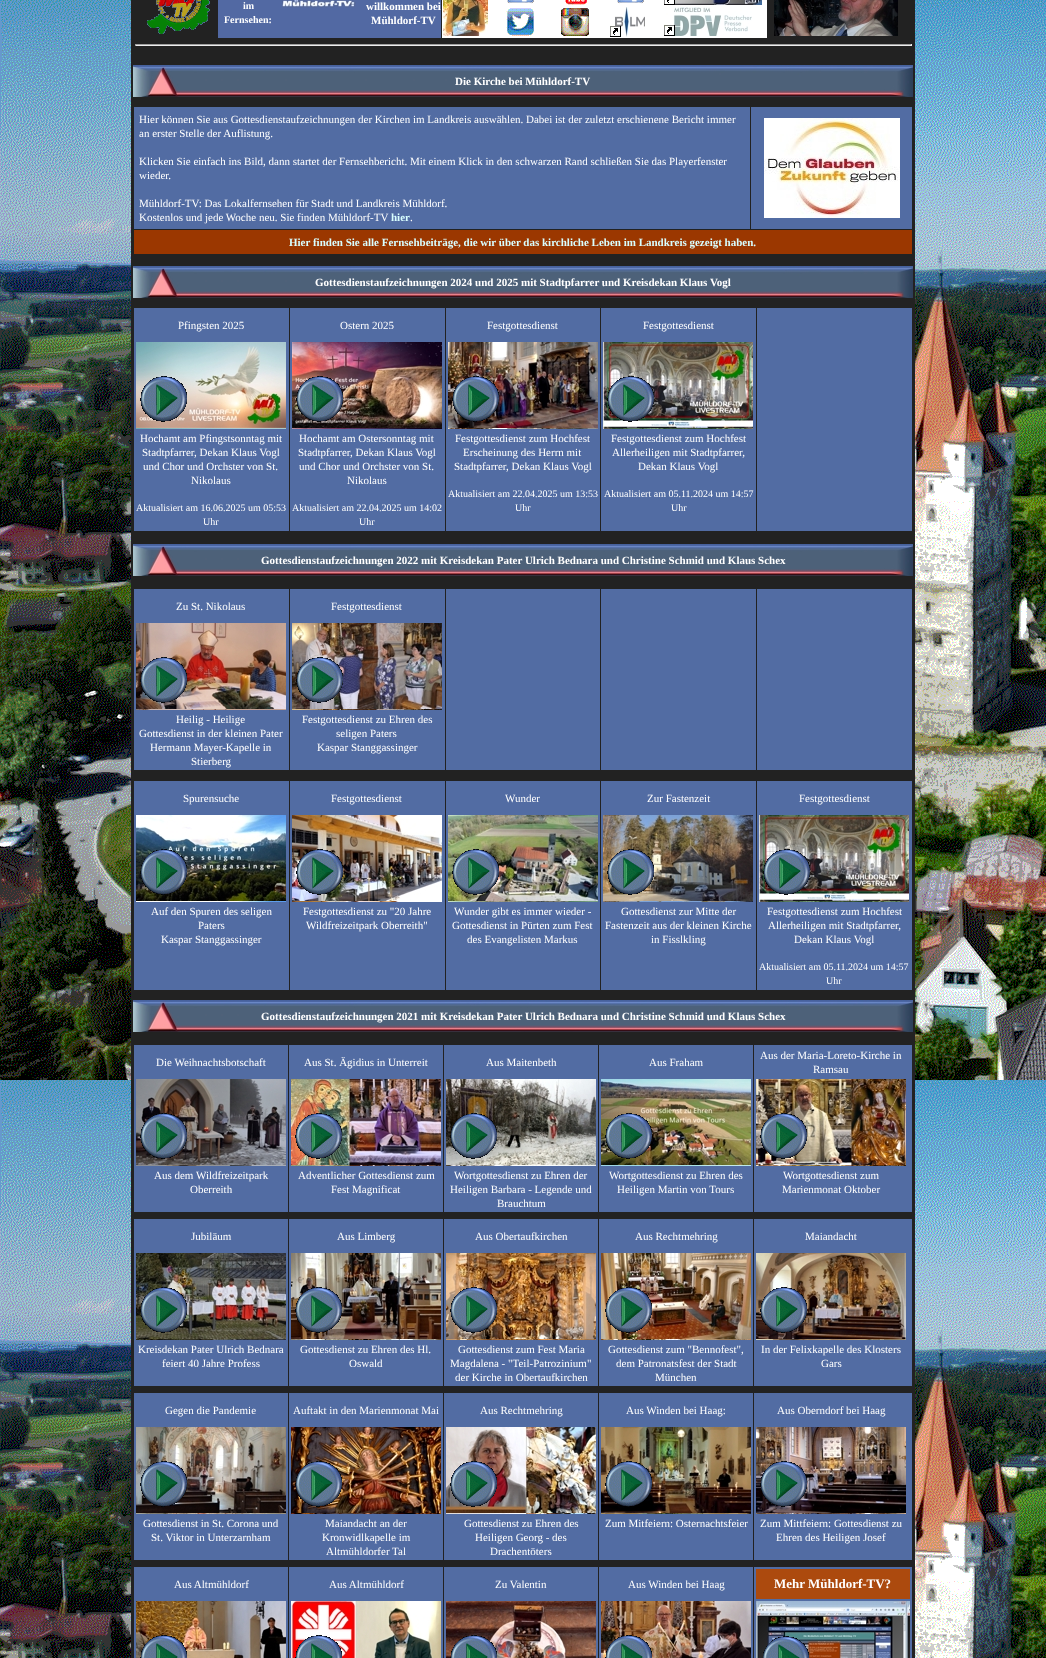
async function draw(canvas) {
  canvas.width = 1046
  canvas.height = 1658
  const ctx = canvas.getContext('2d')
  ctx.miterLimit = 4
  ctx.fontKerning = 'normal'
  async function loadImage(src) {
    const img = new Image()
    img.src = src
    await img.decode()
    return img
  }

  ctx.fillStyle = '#fff'
  ctx.fillRect(0, 0, 1046, 1658)
  ctx.drawImage(await loadImage('image0.png'), 0, 0, 1046, 1658)
  ctx.fillStyle = '#222'
  ctx.fillRect(131, 0, 784, 1658)
  ctx.drawImage(await loadImage('image1.png'), 147, 0, 63, 34)
  ctx.fillStyle = '#5269a3'
  ctx.fillRect(218, 0, 223, 38)
  ctx.font = 'bold 10px Liberation Serif'
  ctx.fillStyle = '#fff'
  ctx.fillText('im', 243, 9)
  ctx.fillText('Fernsehen:', 224, 23)
  ctx.drawImage(await loadImage('image2.png'), 282, 0, 74, 8)
  ctx.font = 'bold 11px Liberation Serif'
  ctx.fillText('willkommen bei', 366, 10)
  ctx.fillText('Mühldorf-TV', 371, 24)
  ctx.fillRect(442, 0, 51, 38)
  ctx.drawImage(await loadImage('image3.png'), 443, 0, 45, 36)
  ctx.fillRect(493, 0, 274, 6)
  ctx.drawImage(await loadImage('image4.png'), 507, 0, 27, 4)
  ctx.drawImage(await loadImage('image5.png'), 565, 0, 22, 5)
  ctx.drawImage(await loadImage('image4.png'), 617, 0, 27, 4)
  ctx.drawImage(await loadImage('image6.png'), 664, 0, 98, 5)
  ctx.drawImage(await loadImage('image7.png'), 774, 0, 124, 36)
  ctx.fillRect(493, 6, 274, 32)
  ctx.drawImage(await loadImage('image8.png'), 506, 8, 28, 28)
  ctx.drawImage(await loadImage('image9.png'), 561, 8, 28, 28)
  ctx.drawImage(await loadImage('image10.png'), 610, 7, 35, 30)
  ctx.drawImage(await loadImage('image11.png'), 664, 7, 88, 29)
  ctx.fillStyle = '#9f9f9f'
  ctx.fillRect(135, 44, 777, 1)
  ctx.fillStyle = '#eee'
  ctx.fillRect(911, 44, 1, 2)
  ctx.fillRect(135, 45, 777, 1)
  ctx.fillStyle = '#9f9f9f'
  ctx.fillRect(135, 44, 1, 2)
  ctx.drawImage(await loadImage('image12.png'), 133, 65, 780, 32)
  ctx.fillStyle = '#fff'
  ctx.fillText('Die Kirche bei Mühldorf-TV', 455, 85)
  ctx.fillStyle = '#526ca3'
  ctx.fillRect(134, 107, 616, 122)
  ctx.font = '11px Liberation Serif'
  ctx.fillStyle = '#fff'
  ctx.fillText('Hier können Sie aus Gottesdienstaufzeichnungen der Kirchen im Landkreis auswählen. Dabei ist der zuletzt erschienene Bericht immer', 139, 123)
  ctx.fillText('an erster Stelle der Auflistung.', 139, 137)
  ctx.fillText('Klicken Sie einfach ins Bild, dann startet der Fernsehbericht. Mit einem Klick in den schwarzen Rand schließen Sie das Playerfenster', 139, 165)
  ctx.fillText('wieder.', 139, 179)
  ctx.fillText('Mühldorf-TV: Das Lokalfernsehen für Stadt und Landkreis Mühldorf.', 139, 207)
  ctx.fillText('Kostenlos und jede Woche neu. Sie finden Mühldorf-TV', 139, 221)
  ctx.font = 'bold 11px Liberation Serif'
  ctx.fillStyle = '#d9ffff'
  ctx.fillText('hier', 391, 221)
  ctx.font = '11px Liberation Serif'
  ctx.fillStyle = '#fff'
  ctx.fillText('.', 410, 221)
  ctx.fillStyle = '#526ca3'
  ctx.fillRect(751, 107, 161, 122)
  ctx.drawImage(await loadImage('image13.png'), 764, 118, 136, 100)
  ctx.fillStyle = '#9b3700'
  ctx.fillRect(134, 230, 778, 24)
  ctx.font = 'bold 11px Liberation Serif'
  ctx.fillStyle = '#d9ffff'
  ctx.fillText('Hier finden Sie alle Fernsehbeiträge, die wir über das kirchliche Leben im Landkreis gezeigt haben.', 289, 246)
  ctx.drawImage(await loadImage('image12.png'), 133, 266, 780, 32)
  ctx.fillStyle = '#fff'
  ctx.fillText('Gottesdienstaufzeichnungen 2024 und 2025 mit Stadtpfarrer und Kreisdekan Klaus Vogl', 315, 286)
  ctx.fillStyle = '#526ca3'
  ctx.fillRect(134, 308, 155, 223)
  ctx.font = '11px Liberation Serif'
  ctx.fillStyle = '#fff'
  ctx.fillText('Pfingsten 2025', 178, 329)
  ctx.drawImage(await loadImage('image14.png'), 136, 342, 150, 87)
  ctx.drawImage(await loadImage('image15.png'), 140, 376, 47, 46)
  ctx.fillText('Hochamt am Pfingstsonntag mit', 140, 442)
  ctx.fillText('Stadtpfarrer, Dekan Klaus Vogl', 142, 456)
  ctx.fillText('und Chor und Orchster von St.', 143, 470)
  ctx.fillText('Nikolaus', 191, 484)
  ctx.font = '10px Liberation Serif'
  ctx.fillText('Aktualisiert am 16.06.2025 um 05:53', 136, 511)
  ctx.fillText('Uhr', 203, 525)
  ctx.fillStyle = '#526ca3'
  ctx.fillRect(290, 308, 155, 223)
  ctx.font = '11px Liberation Serif'
  ctx.fillStyle = '#fff'
  ctx.fillText('Ostern 2025', 340, 329)
  ctx.drawImage(await loadImage('image16.png'), 292, 342, 150, 87)
  ctx.drawImage(await loadImage('image17.png'), 296, 376, 47, 46)
  ctx.fillText('Hochamt am Ostersonntag mit', 299, 442)
  ctx.fillText('Stadtpfarrer, Dekan Klaus Vogl', 298, 456)
  ctx.fillText('und Chor und Orchster von St.', 299, 470)
  ctx.fillText('Nikolaus', 347, 484)
  ctx.font = '10px Liberation Serif'
  ctx.fillText('Aktualisiert am 22.04.2025 um 14:02', 292, 511)
  ctx.fillText('Uhr', 359, 525)
  ctx.fillStyle = '#526ca3'
  ctx.fillRect(446, 308, 154, 223)
  ctx.font = '11px Liberation Serif'
  ctx.fillStyle = '#fff'
  ctx.fillText('Festgottesdienst', 487, 329)
  ctx.drawImage(await loadImage('image18.png'), 448, 342, 150, 87)
  ctx.drawImage(await loadImage('image19.png'), 452, 376, 47, 46)
  ctx.fillText('Festgottesdienst zum Hochfest', 455, 442)
  ctx.fillText('Erscheinung des Herrn mit', 463, 456)
  ctx.fillText('Stadtpfarrer, Dekan Klaus Vogl', 454, 470)
  ctx.font = '10px Liberation Serif'
  ctx.fillText('Aktualisiert am 22.04.2025 um 13:53', 448, 497)
  ctx.fillText('Uhr', 515, 511)
  ctx.fillStyle = '#526ca3'
  ctx.fillRect(601, 308, 155, 223)
  ctx.font = '11px Liberation Serif'
  ctx.fillStyle = '#fff'
  ctx.fillText('Festgottesdienst', 643, 329)
  ctx.drawImage(await loadImage('image20.png'), 603, 342, 150, 87)
  ctx.drawImage(await loadImage('image21.png'), 607, 376, 47, 46)
  ctx.fillText('Festgottesdienst zum Hochfest', 611, 442)
  ctx.fillText('Allerheiligen mit Stadtpfarrer,', 612, 456)
  ctx.fillText('Dekan Klaus Vogl', 638, 470)
  ctx.font = '10px Liberation Serif'
  ctx.fillText('Aktualisiert am 05.11.2024 um 14:57', 604, 497)
  ctx.fillText('Uhr', 671, 511)
  ctx.fillStyle = '#526ca3'
  ctx.fillRect(757, 308, 155, 223)
  ctx.drawImage(await loadImage('image12.png'), 133, 544, 780, 32)
  ctx.font = 'bold 11px Liberation Serif'
  ctx.fillStyle = '#fff'
  ctx.fillText('Gottesdienstaufzeichnungen 2022 mit Kreisdekan Pater Ulrich Bednara und Christine Schmid und Klaus Schex', 261, 564)
  ctx.fillStyle = '#526ca3'
  ctx.fillRect(134, 589, 155, 181)
  ctx.font = '11px Liberation Serif'
  ctx.fillStyle = '#fff'
  ctx.fillText('Zu St. Nikolaus', 176, 610)
  ctx.drawImage(await loadImage('image22.png'), 136, 623, 150, 87)
  ctx.drawImage(await loadImage('image23.png'), 140, 657, 47, 46)
  ctx.fillText('Heilig - Heilige', 176, 723)
  ctx.fillText('Gottesdienst in der kleinen Pater', 139, 737)
  ctx.fillText('Hermann Mayer-Kapelle in', 150, 751)
  ctx.fillText('Stierberg', 191, 765)
  ctx.fillStyle = '#526ca3'
  ctx.fillRect(290, 589, 155, 181)
  ctx.fillStyle = '#fff'
  ctx.fillText('Festgottesdienst', 331, 610)
  ctx.drawImage(await loadImage('image24.png'), 292, 623, 150, 87)
  ctx.drawImage(await loadImage('image25.png'), 296, 657, 47, 46)
  ctx.fillText('Festgottesdienst zu Ehren des', 302, 723)
  ctx.fillText('seligen Paters', 336, 737)
  ctx.fillText('Kaspar Stanggassinger', 317, 751)
  ctx.fillStyle = '#526ca3'
  ctx.fillRect(446, 589, 154, 181)
  ctx.fillRect(601, 589, 155, 181)
  ctx.fillRect(757, 589, 155, 181)
  ctx.fillRect(134, 781, 155, 209)
  ctx.fillStyle = '#fff'
  ctx.fillText('Spurensuche', 183, 802)
  ctx.drawImage(await loadImage('image26.png'), 136, 815, 150, 87)
  ctx.drawImage(await loadImage('image27.png'), 140, 849, 47, 46)
  ctx.fillText('Auf den Spuren des seligen', 151, 915)
  ctx.fillText('Paters', 198, 929)
  ctx.fillText('Kaspar Stanggassinger', 161, 943)
  ctx.fillStyle = '#526ca3'
  ctx.fillRect(290, 781, 155, 209)
  ctx.fillStyle = '#fff'
  ctx.fillText('Festgottesdienst', 331, 802)
  ctx.drawImage(await loadImage('image28.png'), 292, 815, 150, 87)
  ctx.drawImage(await loadImage('image29.png'), 296, 849, 47, 46)
  ctx.fillText('Festgottesdienst zu "20 Jahre', 303, 915)
  ctx.fillText('Wildfreizeitpark Oberreith"', 306, 929)
  ctx.fillStyle = '#526ca3'
  ctx.fillRect(446, 781, 154, 209)
  ctx.fillStyle = '#fff'
  ctx.fillText('Wunder', 505, 802)
  ctx.drawImage(await loadImage('image30.png'), 448, 815, 150, 87)
  ctx.drawImage(await loadImage('image31.png'), 452, 849, 47, 46)
  ctx.fillText('Wunder gibt es immer wieder -', 454, 915)
  ctx.fillText('Gottesdienst in Pürten zum Fest', 452, 929)
  ctx.fillText('des Evangelisten Markus', 467, 943)
  ctx.fillStyle = '#526ca3'
  ctx.fillRect(601, 781, 155, 209)
  ctx.fillStyle = '#fff'
  ctx.fillText('Zur Fastenzeit', 647, 802)
  ctx.drawImage(await loadImage('image32.png'), 603, 815, 150, 87)
  ctx.drawImage(await loadImage('image33.png'), 607, 849, 47, 46)
  ctx.fillText('Gottesdienst zur Mitte der', 621, 915)
  ctx.fillText('Fastenzeit aus der kleinen Kirche', 605, 929)
  ctx.fillText('in Fisslkling', 651, 943)
  ctx.fillStyle = '#526ca3'
  ctx.fillRect(757, 781, 155, 209)
  ctx.fillStyle = '#fff'
  ctx.fillText('Festgottesdienst', 799, 802)
  ctx.drawImage(await loadImage('image20.png'), 759, 815, 150, 87)
  ctx.drawImage(await loadImage('image21.png'), 763, 849, 47, 46)
  ctx.fillText('Festgottesdienst zum Hochfest', 767, 915)
  ctx.fillText('Allerheiligen mit Stadtpfarrer,', 768, 929)
  ctx.fillText('Dekan Klaus Vogl', 794, 943)
  ctx.font = '10px Liberation Serif'
  ctx.fillText('Aktualisiert am 05.11.2024 um 14:57', 759, 970)
  ctx.fillText('Uhr', 826, 984)
  ctx.drawImage(await loadImage('image12.png'), 133, 1000, 780, 32)
  ctx.font = 'bold 11px Liberation Serif'
  ctx.fillText('Gottesdienstaufzeichnungen 2021 mit Kreisdekan Pater Ulrich Bednara und Christine Schmid und Klaus Schex', 261, 1020)
  ctx.fillStyle = '#526ca3'
  ctx.fillRect(134, 1045, 154, 167)
  ctx.font = '11px Liberation Serif'
  ctx.fillStyle = '#fff'
  ctx.fillText('Die Weihnachtsbotschaft', 156, 1066)
  ctx.drawImage(await loadImage('image34.png'), 136, 1079, 150, 87)
  ctx.drawImage(await loadImage('image35.png'), 140, 1113, 47, 46)
  ctx.fillText('Aus dem Wildfreizeitpark', 154, 1179)
  ctx.fillText('Oberreith', 190, 1193)
  ctx.fillStyle = '#526ca3'
  ctx.fillRect(289, 1045, 154, 167)
  ctx.fillStyle = '#fff'
  ctx.fillText('Aus St. Ägidius in Unterreit', 304, 1066)
  ctx.drawImage(await loadImage('image36.png'), 291, 1079, 150, 87)
  ctx.drawImage(await loadImage('image37.png'), 295, 1113, 47, 46)
  ctx.fillText('Adventlicher Gottesdienst zum', 298, 1179)
  ctx.fillText('Fest Magnificat', 331, 1193)
  ctx.fillStyle = '#526ca3'
  ctx.fillRect(444, 1045, 154, 167)
  ctx.fillStyle = '#fff'
  ctx.fillText('Aus Maitenbeth', 486, 1066)
  ctx.drawImage(await loadImage('image38.png'), 446, 1079, 150, 87)
  ctx.drawImage(await loadImage('image39.png'), 450, 1113, 47, 46)
  ctx.fillText('Wortgottesdienst zu Ehren der', 454, 1179)
  ctx.fillText('Heiligen Barbara - Legende und', 450, 1193)
  ctx.fillText('Brauchtum', 497, 1207)
  ctx.fillStyle = '#526ca3'
  ctx.fillRect(599, 1045, 154, 167)
  ctx.fillStyle = '#fff'
  ctx.fillText('Aus Fraham', 649, 1066)
  ctx.drawImage(await loadImage('image40.png'), 601, 1079, 150, 87)
  ctx.drawImage(await loadImage('image41.png'), 605, 1113, 47, 46)
  ctx.fillText('Wortgottesdienst zu Ehren des', 609, 1179)
  ctx.fillText('Heiligen Martin von Tours', 617, 1193)
  ctx.fillStyle = '#526ca3'
  ctx.fillRect(754, 1045, 158, 167)
  ctx.fillStyle = '#fff'
  ctx.fillText('Aus der Maria-Loreto-Kirche in', 760, 1059)
  ctx.fillText('Ramsau', 813, 1073)
  ctx.drawImage(await loadImage('image42.png'), 756, 1079, 150, 87)
  ctx.drawImage(await loadImage('image43.png'), 760, 1113, 47, 46)
  ctx.fillText('Wortgottesdienst zum', 783, 1179)
  ctx.fillText('Marienmonat Oktober', 782, 1193)
  ctx.fillStyle = '#526ca3'
  ctx.fillRect(134, 1219, 154, 167)
  ctx.fillStyle = '#fff'
  ctx.fillText('Jubiläum', 191, 1240)
  ctx.drawImage(await loadImage('image44.png'), 136, 1253, 150, 87)
  ctx.drawImage(await loadImage('image45.png'), 140, 1287, 47, 46)
  ctx.fillText('Kreisdekan Pater Ulrich Bednara', 138, 1353)
  ctx.fillText('feiert 40 Jahre Profess', 162, 1367)
  ctx.fillStyle = '#526ca3'
  ctx.fillRect(289, 1219, 154, 167)
  ctx.fillStyle = '#fff'
  ctx.fillText('Aus Limberg', 337, 1240)
  ctx.drawImage(await loadImage('image46.png'), 291, 1253, 150, 87)
  ctx.drawImage(await loadImage('image47.png'), 295, 1287, 47, 46)
  ctx.fillText('Gottesdienst zu Ehren des Hl.', 300, 1353)
  ctx.fillText('Oswald', 349, 1367)
  ctx.fillStyle = '#526ca3'
  ctx.fillRect(444, 1219, 154, 167)
  ctx.fillStyle = '#fff'
  ctx.fillText('Aus Obertaufkirchen', 475, 1240)
  ctx.drawImage(await loadImage('image48.png'), 446, 1253, 150, 87)
  ctx.drawImage(await loadImage('image49.png'), 450, 1287, 47, 46)
  ctx.fillText('Gottesdienst zum Fest Maria', 458, 1353)
  ctx.fillText('Magdalena - "Teil-Patrozinium"', 450, 1367)
  ctx.fillText('der Kirche in Obertaufkirchen', 455, 1381)
  ctx.fillStyle = '#526ca3'
  ctx.fillRect(599, 1219, 154, 167)
  ctx.fillStyle = '#fff'
  ctx.fillText('Aus Rechtmehring', 635, 1240)
  ctx.drawImage(await loadImage('image50.png'), 601, 1253, 150, 87)
  ctx.drawImage(await loadImage('image51.png'), 605, 1287, 47, 46)
  ctx.fillText('Gottesdienst zum "Bennofest",', 608, 1353)
  ctx.fillText('dem Patronatsfest der Stadt', 616, 1367)
  ctx.fillText('München', 655, 1381)
  ctx.fillStyle = '#526ca3'
  ctx.fillRect(754, 1219, 158, 167)
  ctx.fillStyle = '#fff'
  ctx.fillText('Maiandacht', 805, 1240)
  ctx.drawImage(await loadImage('image52.png'), 756, 1253, 150, 87)
  ctx.drawImage(await loadImage('image53.png'), 760, 1287, 47, 46)
  ctx.fillText('In der Felixkapelle des Klosters', 761, 1353)
  ctx.fillText('Gars', 821, 1367)
  ctx.fillStyle = '#526ca3'
  ctx.fillRect(134, 1393, 154, 167)
  ctx.fillStyle = '#fff'
  ctx.fillText('Gegen die Pandemie', 165, 1414)
  ctx.drawImage(await loadImage('image54.png'), 136, 1427, 150, 87)
  ctx.drawImage(await loadImage('image55.png'), 140, 1461, 47, 46)
  ctx.fillText('Gottesdienst in St. Corona und', 143, 1527)
  ctx.fillText('St. Viktor in Unterzarnham', 151, 1541)
  ctx.fillStyle = '#526ca3'
  ctx.fillRect(289, 1393, 154, 167)
  ctx.fillStyle = '#fff'
  ctx.fillText('Auftakt in den Marienmonat Mai', 293, 1414)
  ctx.drawImage(await loadImage('image56.png'), 291, 1427, 150, 87)
  ctx.drawImage(await loadImage('image57.png'), 295, 1461, 47, 46)
  ctx.fillText('Maiandacht an der', 325, 1527)
  ctx.fillText('Kronwidlkapelle im', 322, 1541)
  ctx.fillText('Altmühldorfer Tal', 326, 1555)
  ctx.fillStyle = '#526ca3'
  ctx.fillRect(444, 1393, 154, 167)
  ctx.fillStyle = '#fff'
  ctx.fillText('Aus Rechtmehring', 480, 1414)
  ctx.drawImage(await loadImage('image58.png'), 446, 1427, 150, 87)
  ctx.drawImage(await loadImage('image59.png'), 450, 1461, 47, 46)
  ctx.fillText('Gottesdienst zu Ehren des', 464, 1527)
  ctx.fillText('Heiligen Georg - des', 475, 1541)
  ctx.fillText('Drachentöters', 490, 1555)
  ctx.fillStyle = '#526ca3'
  ctx.fillRect(599, 1393, 154, 167)
  ctx.fillStyle = '#fff'
  ctx.fillText('Aus Winden bei Haag:', 626, 1414)
  ctx.drawImage(await loadImage('image60.png'), 601, 1427, 150, 87)
  ctx.drawImage(await loadImage('image61.png'), 605, 1461, 47, 46)
  ctx.fillText('Zum Mitfeiern: Osternachtsfeier', 605, 1527)
  ctx.fillStyle = '#526ca3'
  ctx.fillRect(754, 1393, 158, 167)
  ctx.fillStyle = '#fff'
  ctx.fillText('Aus Oberndorf bei Haag', 777, 1414)
  ctx.drawImage(await loadImage('image62.png'), 756, 1427, 150, 87)
  ctx.drawImage(await loadImage('image63.png'), 760, 1461, 47, 46)
  ctx.fillText('Zum Mittfeiern: Gottesdienst zu', 760, 1527)
  ctx.fillText('Ehren des Heiligen Josef', 776, 1541)
  ctx.fillStyle = '#526ca3'
  ctx.fillRect(134, 1567, 154, 91)
  ctx.fillStyle = '#fff'
  ctx.fillText('Aus Altmühldorf', 174, 1588)
  ctx.drawImage(await loadImage('image64.png'), 136, 1601, 150, 57)
  ctx.drawImage(await loadImage('image65.png'), 140, 1635, 47, 23)
  ctx.fillStyle = '#526ca3'
  ctx.fillRect(289, 1567, 154, 91)
  ctx.fillStyle = '#fff'
  ctx.fillText('Aus Altmühldorf', 329, 1588)
  ctx.drawImage(await loadImage('image66.png'), 291, 1601, 150, 57)
  ctx.drawImage(await loadImage('image67.png'), 295, 1635, 47, 23)
  ctx.fillStyle = '#526ca3'
  ctx.fillRect(444, 1567, 154, 91)
  ctx.fillStyle = '#fff'
  ctx.fillText('Zu Valentin', 495, 1588)
  ctx.drawImage(await loadImage('image68.png'), 446, 1601, 150, 57)
  ctx.drawImage(await loadImage('image69.png'), 450, 1635, 47, 23)
  ctx.fillStyle = '#526ca3'
  ctx.fillRect(599, 1567, 154, 91)
  ctx.fillStyle = '#fff'
  ctx.fillText('Aus Winden bei Haag', 628, 1588)
  ctx.drawImage(await loadImage('image70.png'), 601, 1601, 150, 57)
  ctx.drawImage(await loadImage('image71.png'), 605, 1635, 47, 23)
  ctx.fillStyle = '#526ca3'
  ctx.fillRect(754, 1567, 158, 91)
  ctx.fillStyle = '#ac4a0e'
  ctx.fillRect(756, 1569, 154, 30)
  ctx.font = 'bold 13px Liberation Serif'
  ctx.fillStyle = '#fff'
  ctx.fillText('Mehr Mühldorf-TV?', 774, 1588)
  ctx.drawImage(await loadImage('image72.png'), 756, 1601, 154, 57)
  ctx.drawImage(await loadImage('image73.png'), 763, 1636, 46, 22)
}

draw(document.querySelector('canvas'))
